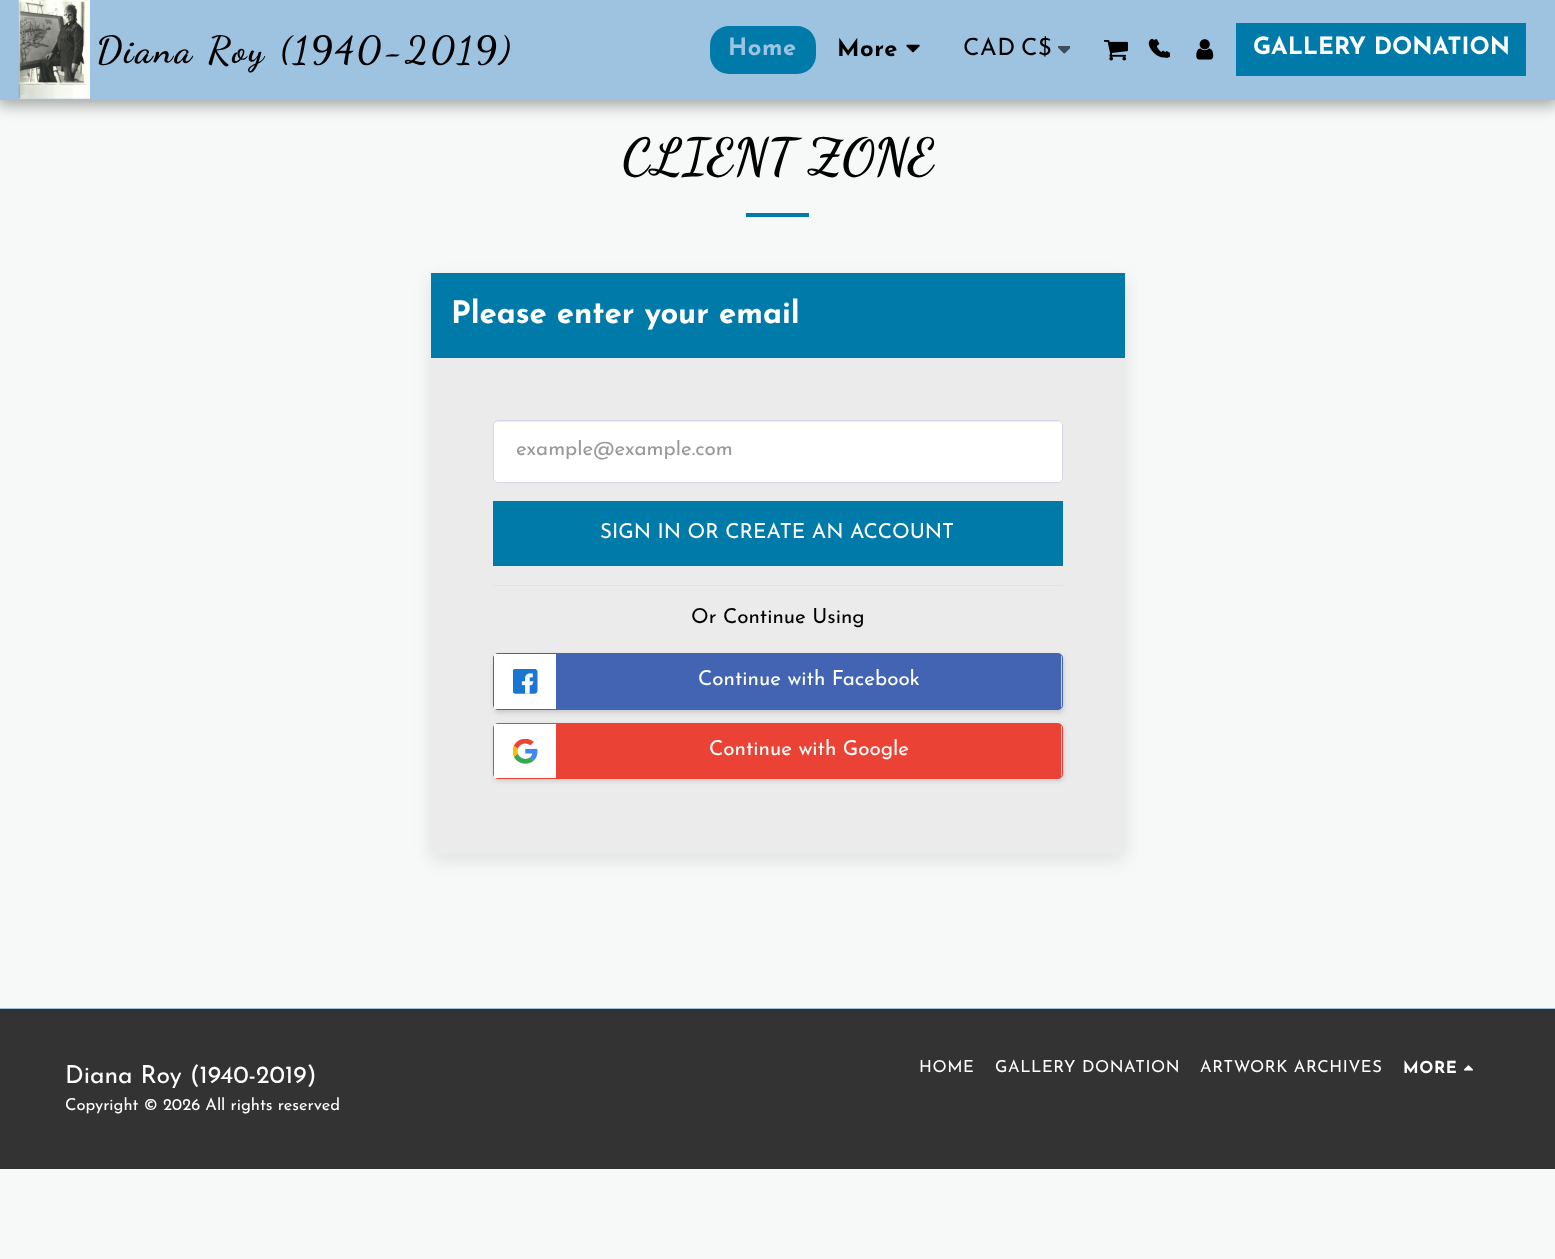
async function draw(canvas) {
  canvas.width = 1555
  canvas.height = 1259
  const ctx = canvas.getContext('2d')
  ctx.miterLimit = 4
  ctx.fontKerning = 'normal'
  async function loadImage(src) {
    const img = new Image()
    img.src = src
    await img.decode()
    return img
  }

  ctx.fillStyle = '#f7f9f8'
  ctx.fillRect(0, 0, 1555, 1259)
  ctx.fillStyle = '#00000059'
  ctx.filter = 'blur(7.5px)'
  ctx.beginPath()
  ctx.rect(-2, 0, 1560, 105)
  ctx.fill()
  ctx.filter = 'none'
  ctx.fillStyle = '#9ec3e0'
  ctx.fillRect(0, 0, 1555, 100)
  ctx.drawImage(await loadImage('image0.png'), 18, 0, 72, 99)
  ctx.letterSpacing = '2.5px'
  ctx.wordSpacing = '1px'
  ctx.font = 'bold 37.5px Dancing Script'
  ctx.fillStyle = '#000'
  ctx.fillText('Diana Roy (1940-2019)', 96, 62)
  ctx.fillStyle = '#007aa9'
  ctx.beginPath()
  ctx.roundRect(710, 26, 106, 48, 19)
  ctx.fill()
  ctx.letterSpacing = '0.6px'
  ctx.wordSpacing = '0px'
  ctx.font = 'bold 23.75px Josefin Sans'
  ctx.fillStyle = '#9ec3e0'
  ctx.fillText('Home', 728, 55)
  ctx.fillStyle = '#000'
  ctx.fillText('More', 837, 56)
  ctx.drawImage(await loadImage('image1.png'), 906, 44, 14, 9)
  ctx.font = '23.75px Josefin Sans'
  ctx.fillText('CAD', 963, 55)
  ctx.fillText('C$', 1021, 55)
  ctx.drawImage(await loadImage('image2.png'), 1058, 46, 12, 8)
  ctx.drawImage(await loadImage('image3.png'), 1104, 40, 24, 21)
  ctx.drawImage(await loadImage('image4.png'), 1153, 39, 17, 19)
  ctx.drawImage(await loadImage('image5.png'), 1148, 38, 18, 20)
  ctx.drawImage(await loadImage('image6.png'), 1196, 39, 18, 21)
  ctx.fillStyle = '#007aa9'
  ctx.fillRect(1236, 23, 290, 53)
  ctx.letterSpacing = '0px'
  ctx.font = 'bold 23.75px Josefin Sans'
  ctx.fillStyle = '#fff'
  ctx.fillText('GALLERY DONATION', 1253, 54)
  ctx.font = 'bold 50.5px Dancing Script'
  ctx.fillStyle = '#000'
  ctx.fillText('CLIENT ZONE', 622, 173)
  ctx.fillStyle = '#007aa9'
  ctx.fillRect(746, 213, 63, 4)
  ctx.fillStyle = '#81818133'
  ctx.filter = 'blur(9px)'
  ctx.beginPath()
  ctx.roundRect(431, 279, 694, 581, 5)
  ctx.fill()
  ctx.filter = 'none'
  ctx.fillStyle = '#ebebeb'
  ctx.beginPath()
  ctx.roundRect(431, 273, 694, 581, 5)
  ctx.fill()
  ctx.fillStyle = '#007aa9'
  ctx.fillRect(431, 273, 694, 85)
  ctx.font = 'bold 31px Josefin Sans'
  ctx.fillStyle = '#fff'
  ctx.fillText('Please enter your email', 451, 323)
  ctx.beginPath()
  ctx.roundRect(493, 420, 570, 63, 5)
  ctx.fill()
  ctx.fillStyle = '#ececec'
  ctx.beginPath()
  ctx.moveTo(498, 422)
  ctx.lineTo(1058, 422)
  ctx.bezierCurveTo(1060, 422, 1061, 424, 1061, 426)
  ctx.bezierCurveTo(1061, 423, 1060, 421, 1057, 421)
  ctx.lineTo(498, 421)
  ctx.bezierCurveTo(495, 421, 494, 423, 494, 426)
  ctx.bezierCurveTo(494, 424, 495, 422, 498, 422)
  ctx.closePath()
  ctx.fill()
  ctx.beginPath()
  ctx.roundRect(493.5, 420.5, 569, 62, 4.5)
  ctx.strokeStyle = '#d4d7e5'
  ctx.stroke()
  ctx.save()
  ctx.beginPath()
  ctx.rect(516, 440, 523, 20)
  ctx.clip()
  ctx.font = '20.6px Josefin Sans'
  ctx.fillStyle = '#999'
  ctx.fillText('example@example.com', 516, 455)
  ctx.restore()
  ctx.fillStyle = '#007aa9'
  ctx.fillRect(493, 501, 570, 65)
  ctx.font = '20.6px Josefin Sans'
  ctx.fillStyle = '#fff'
  ctx.fillText('SIGN IN OR CREATE AN ACCOUNT', 600, 538)
  ctx.fillStyle = '#e2e2e2'
  ctx.fillRect(493, 585, 570, 1)
  ctx.fillStyle = '#000'
  ctx.fillText('Or Continue Using', 691, 623)
  ctx.fillStyle = '#ccc'
  ctx.filter = 'blur(2px)'
  ctx.beginPath()
  ctx.roundRect(494, 655, 570, 58, 5)
  ctx.fill()
  ctx.filter = 'none'
  ctx.beginPath()
  ctx.roundRect(493.5, 653.5, 569, 56, 4.5)
  ctx.strokeStyle = '#4264b2'
  ctx.stroke()
  ctx.fillStyle = '#fff'
  ctx.fillRect(494, 654, 62, 55)
  ctx.drawImage(await loadImage('image7.png'), 513, 669, 25, 25)
  ctx.fillStyle = '#4264b2'
  ctx.fillRect(556, 654, 505, 55)
  ctx.fillStyle = '#fff'
  ctx.fillText('Continue with Facebook', 698, 685)
  ctx.fillStyle = '#ccc'
  ctx.filter = 'blur(2px)'
  ctx.beginPath()
  ctx.roundRect(494, 725, 570, 56, 5)
  ctx.fill()
  ctx.filter = 'none'
  ctx.beginPath()
  ctx.roundRect(493.5, 723.5, 569, 55, 4.5)
  ctx.strokeStyle = '#ea4335'
  ctx.stroke()
  ctx.fillStyle = '#fff'
  ctx.fillRect(494, 724, 62, 54)
  ctx.drawImage(await loadImage('image8.png'), 513, 739, 25, 25)
  ctx.fillStyle = '#ea4335'
  ctx.fillRect(556, 724, 505, 54)
  ctx.fillStyle = '#fff'
  ctx.fillText('Continue with Google', 709, 755)
  ctx.fillStyle = '#333'
  ctx.fillRect(0, 1009, 1555, 160)
  ctx.fillStyle = '#9ec3e0'
  ctx.fillRect(0, 1008, 1555, 1)
  ctx.font = '24.75px Josefin Sans'
  ctx.fillStyle = '#fff'
  ctx.fillText('Diana Roy (1940-2019)', 65, 1083)
  ctx.font = '16.5px Josefin Sans'
  ctx.fillText('Copyright © 2026 All rights reserved', 65, 1110)
  ctx.letterSpacing = '0.6px'
  ctx.fillText('HOME', 919, 1072)
  ctx.fillText('GALLERY DONATION', 995, 1072)
  ctx.fillText('ARTWORK ARCHIVES', 1200, 1072)
  ctx.font = 'bold 16.5px Josefin Sans'
  ctx.fillText('MORE', 1403, 1073)
  ctx.drawImage(await loadImage('image9.png'), 1464, 1065, 9, 6)
}

draw(document.querySelector('canvas'))
